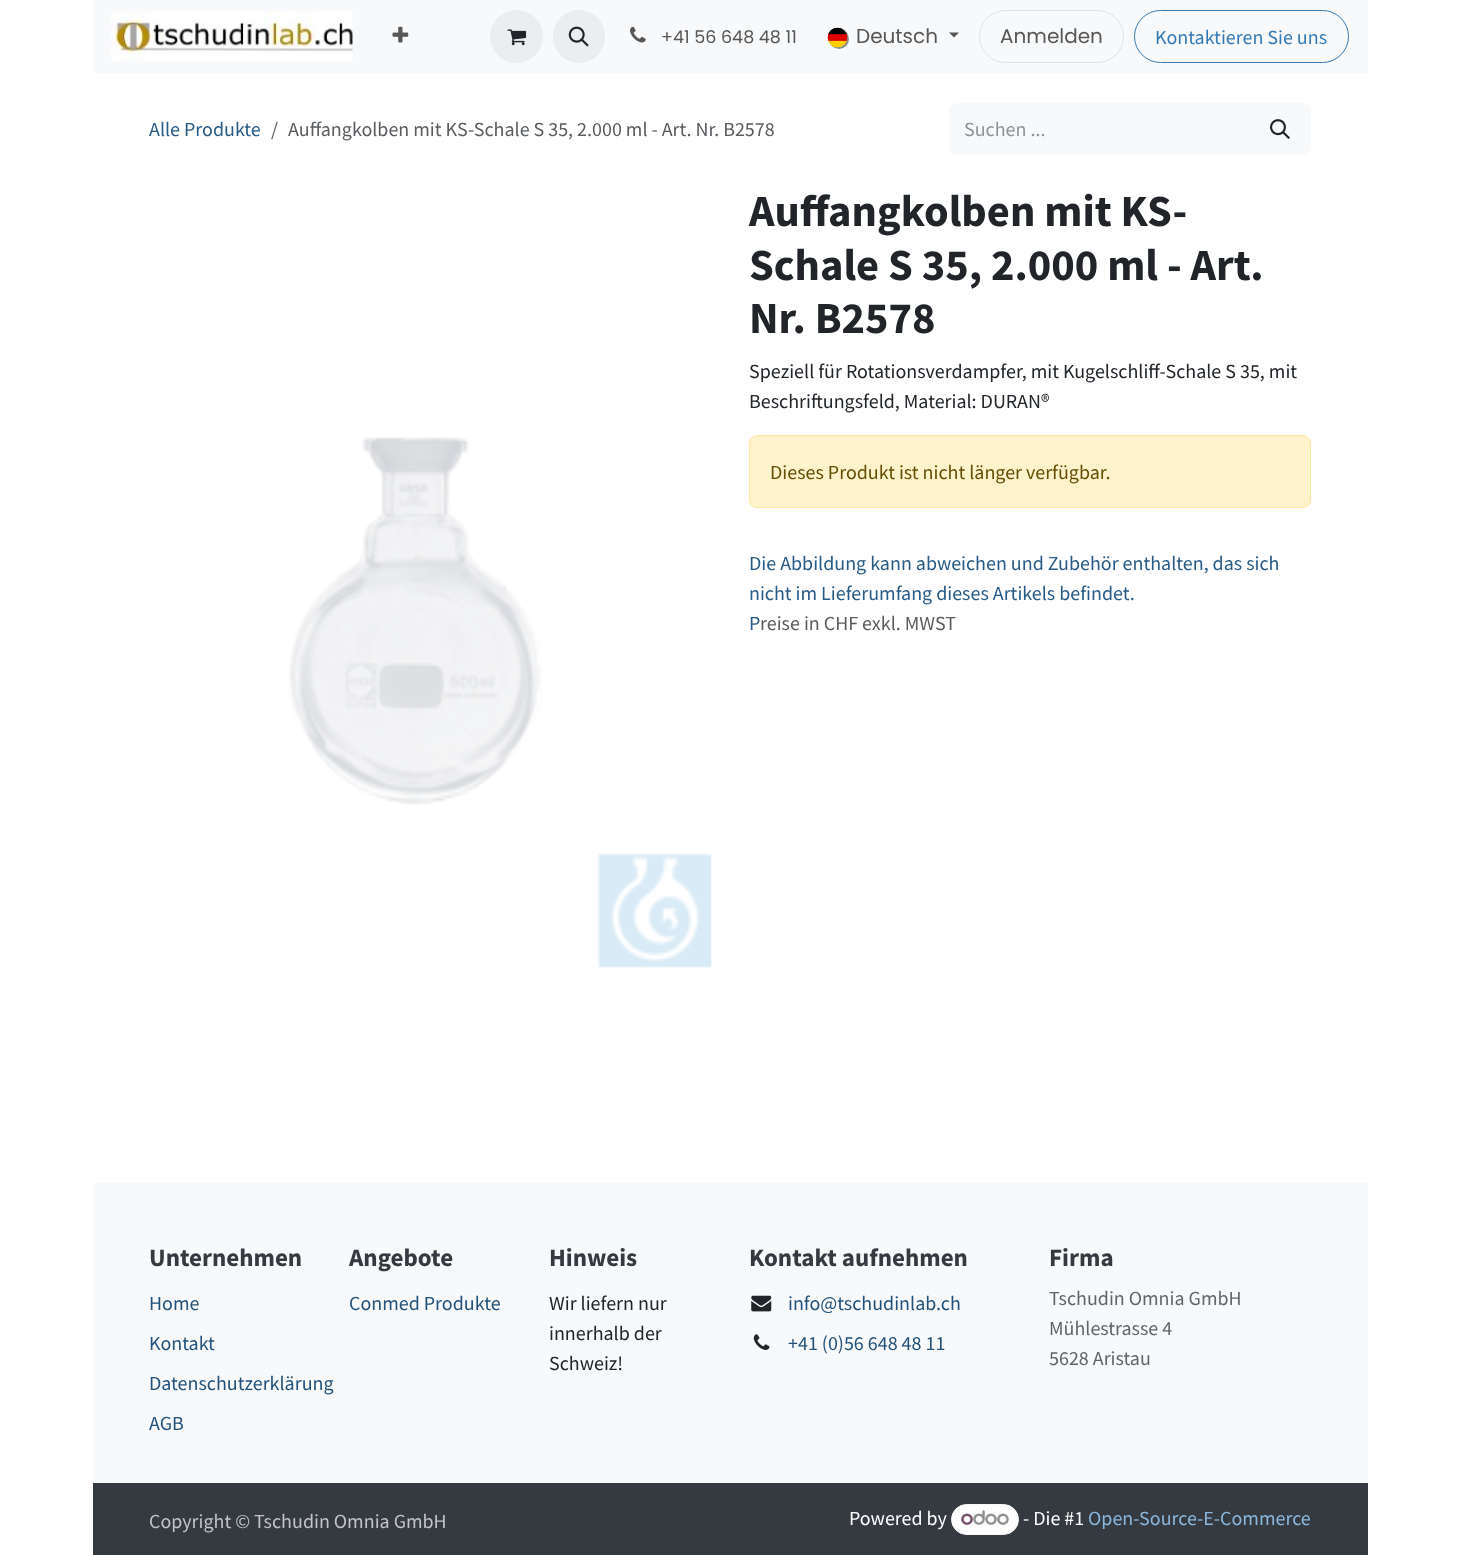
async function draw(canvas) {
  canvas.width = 1460
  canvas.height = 1555
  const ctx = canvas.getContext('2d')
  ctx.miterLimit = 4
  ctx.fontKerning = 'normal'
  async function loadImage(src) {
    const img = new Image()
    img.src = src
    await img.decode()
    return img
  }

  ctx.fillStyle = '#fff'
  ctx.fillRect(0, 0, 1460, 1555)
  ctx.fillStyle = '#f8f9fa'
  ctx.fillRect(93, 0, 1275, 73)
  ctx.drawImage(await loadImage('image0.png'), 111, 11, 242, 50)
  ctx.drawImage(await loadImage('image1.png'), 392, 26, 17, 17)
  ctx.fillStyle = '#ecedee'
  ctx.beginPath()
  ctx.arc(516.5, 36.5, 26.5, 0, 2 * Math.PI)
  ctx.fill()
  ctx.drawImage(await loadImage('image2.png'), 507, 29, 20, 17)
  ctx.beginPath()
  ctx.roundRect(553, 10, 52, 53, 26)
  ctx.fill()
  ctx.drawImage(await loadImage('image3.png'), 568, 26, 21, 21)
  ctx.drawImage(await loadImage('image4.png'), 630, 26, 16, 17)
  ctx.font = '17.5px Poppins'
  ctx.fillStyle = '#575758'
  ctx.fillText('+41 56 648 48 11', 661, 43)
  ctx.fillStyle = '#0000006e'
  ctx.filter = 'blur(0.5px)'
  ctx.beginPath()
  ctx.roundRect(829, 29, 20, 20, 10)
  ctx.fill()
  ctx.filter = 'none'
  ctx.drawImage(await loadImage('image5.png'), 827, 27, 21, 21)
  ctx.font = '20px Poppins'
  ctx.fillStyle = '#575758'
  ctx.fillText('Deutsch', 856, 43)
  ctx.beginPath()
  ctx.moveTo(949, 32.5)
  ctx.lineTo(959, 32.5)
  ctx.lineTo(954, 37.5)
  ctx.closePath()
  ctx.fill()
  ctx.beginPath()
  ctx.roundRect(979.5, 10.5, 144, 52, 26)
  ctx.strokeStyle = '#e0e1e2'
  ctx.stroke()
  ctx.fillText('Anmelden', 1000, 43)
  ctx.beginPath()
  ctx.roundRect(1134.5, 10.5, 214, 52, 26)
  ctx.strokeStyle = '#337ab7'
  ctx.stroke()
  ctx.font = '20px Source Sans Pro'
  ctx.fillStyle = '#337ab7'
  ctx.fillText('Kontaktieren Sie uns', 1155, 44)
  ctx.fillStyle = '#265a87'
  ctx.fillText('Alle Produkte', 149, 136)
  ctx.fillStyle = '#595c5f'
  ctx.fillText('/', 271, 136)
  ctx.fillText('Auffangkolben mit KS-Schale S 35, 2.000 ml - Art. Nr. B2578', 288, 136)
  ctx.fillStyle = '#f8f9fa'
  ctx.beginPath()
  ctx.roundRect(949, 103, 301, 52, [8, 0, 0, 8])
  ctx.fill()
  ctx.fillStyle = '#909294'
  ctx.fillText('Suchen ...', 964, 136)
  ctx.fillStyle = '#f8f9fa'
  ctx.beginPath()
  ctx.roundRect(1249, 103, 62, 52, [0, 8, 8, 0])
  ctx.fill()
  ctx.drawImage(await loadImage('image6.png'), 1270, 119, 20, 20)
  ctx.drawImage(await loadImage('image7.png'), 289, 437, 423, 531)
  ctx.font = 'bold 44.5px Source Sans Pro'
  ctx.fillStyle = '#212529'
  ctx.fillText('Auffangkolben mit KS-', 749, 226)
  ctx.fillText('Schale S 35, 2.000 ml - Art.', 749, 280)
  ctx.fillText('Nr. B2578', 749, 333)
  ctx.font = '20px Source Sans Pro'
  ctx.fillText('Speziell für Rotationsverdampfer, mit Kugelschliff-Schale S 35, mit', 749, 378)
  ctx.fillText('Beschriftungsfeld, Material: DURAN®', 749, 408)
  ctx.fillStyle = '#fff3cd'
  ctx.beginPath()
  ctx.roundRect(749.5, 435.5, 561, 72, 7.5)
  ctx.fill()
  ctx.strokeStyle = '#ffe69c'
  ctx.stroke()
  ctx.fillStyle = '#664d03'
  ctx.fillText('Dieses Produkt ist nicht länger verfügbar.', 770, 479)
  ctx.fillStyle = '#265a87'
  ctx.fillText('Die Abbildung kann abweichen und Zubehör enthalten, das sich', 749, 570)
  ctx.fillText('nicht im Lieferumfang dieses Artikels befindet.', 749, 600)
  ctx.fillText('P', 749, 630)
  ctx.fillStyle = '#595c5f'
  ctx.fillText('reise in CHF exkl. MWST', 760, 630)
  ctx.fillStyle = '#f8f9fa'
  ctx.fillRect(93, 1183, 1275, 300)
  ctx.font = 'bold 25px Source Sans Pro'
  ctx.fillStyle = '#343a40'
  ctx.fillText('Unternehmen', 149, 1266)
  ctx.font = '20px Source Sans Pro'
  ctx.fillStyle = '#22527b'
  ctx.fillText('Home', 149, 1310)
  ctx.fillText('Kontakt', 149, 1350)
  ctx.fillText('Datenschutzerklärung', 149, 1390)
  ctx.fillText('AGB', 149, 1430)
  ctx.font = 'bold 25px Source Sans Pro'
  ctx.fillStyle = '#343a40'
  ctx.fillText('Angebote', 349, 1266)
  ctx.font = '20px Source Sans Pro'
  ctx.fillStyle = '#22527b'
  ctx.fillText('Conmed Produkte', 349, 1310)
  ctx.font = 'bold 25px Source Sans Pro'
  ctx.fillStyle = '#343a40'
  ctx.fillText('Hinweis', 549, 1266)
  ctx.font = '20px Source Sans Pro'
  ctx.fillStyle = '#212529'
  ctx.fillText('Wir liefern nur', 549, 1310)
  ctx.fillText('innerhalb der', 549, 1340)
  ctx.fillText('Schweiz!', 549, 1370)
  ctx.font = 'bold 25px Source Sans Pro'
  ctx.fillStyle = '#343a40'
  ctx.fillText('Kontakt aufnehmen', 749, 1266)
  ctx.drawImage(await loadImage('image8.png'), 751, 1295, 21, 17)
  ctx.font = '20px Source Sans Pro'
  ctx.fillStyle = '#22527b'
  ctx.fillText('info@tschudinlab.ch', 788, 1310)
  ctx.drawImage(await loadImage('image9.png'), 753, 1334, 17, 16)
  ctx.fillText('+41 (0)56 648 48 11', 788, 1350)
  ctx.font = 'bold 25px Source Sans Pro'
  ctx.fillStyle = '#343a40'
  ctx.fillText('Firma', 1049, 1266)
  ctx.font = '20px Source Sans Pro'
  ctx.fillStyle = '#626568'
  ctx.fillText('Tschudin Omnia GmbH', 1049, 1305)
  ctx.fillText('Mühlestrasse 4', 1049, 1335)
  ctx.fillText('5628 Aristau', 1049, 1365)
  ctx.fillStyle = '#343a40'
  ctx.fillRect(93, 1483, 1275, 72)
  ctx.fillStyle = '#c2c4c6'
  ctx.fillText('Copyright © Tschudin Omnia GmbH', 149, 1528)
  ctx.fillStyle = '#fff'
  ctx.fillText('Powered by', 849, 1525)
  ctx.fillStyle = '#fefeff'
  ctx.beginPath()
  ctx.roundRect(951.5, 1504.5, 67, 30, 15)
  ctx.fill()
  ctx.strokeStyle = '#f8f9fa'
  ctx.stroke()
  ctx.drawImage(await loadImage('image10.png'), 961, 1510, 48, 15)
  ctx.fillStyle = '#fff'
  ctx.fillText('- Die #1', 1023, 1525)
  ctx.fillStyle = '#8bb8df'
  ctx.fillText('Open-Source-E-Commerce', 1088, 1525)
}

draw(document.querySelector('canvas'))
